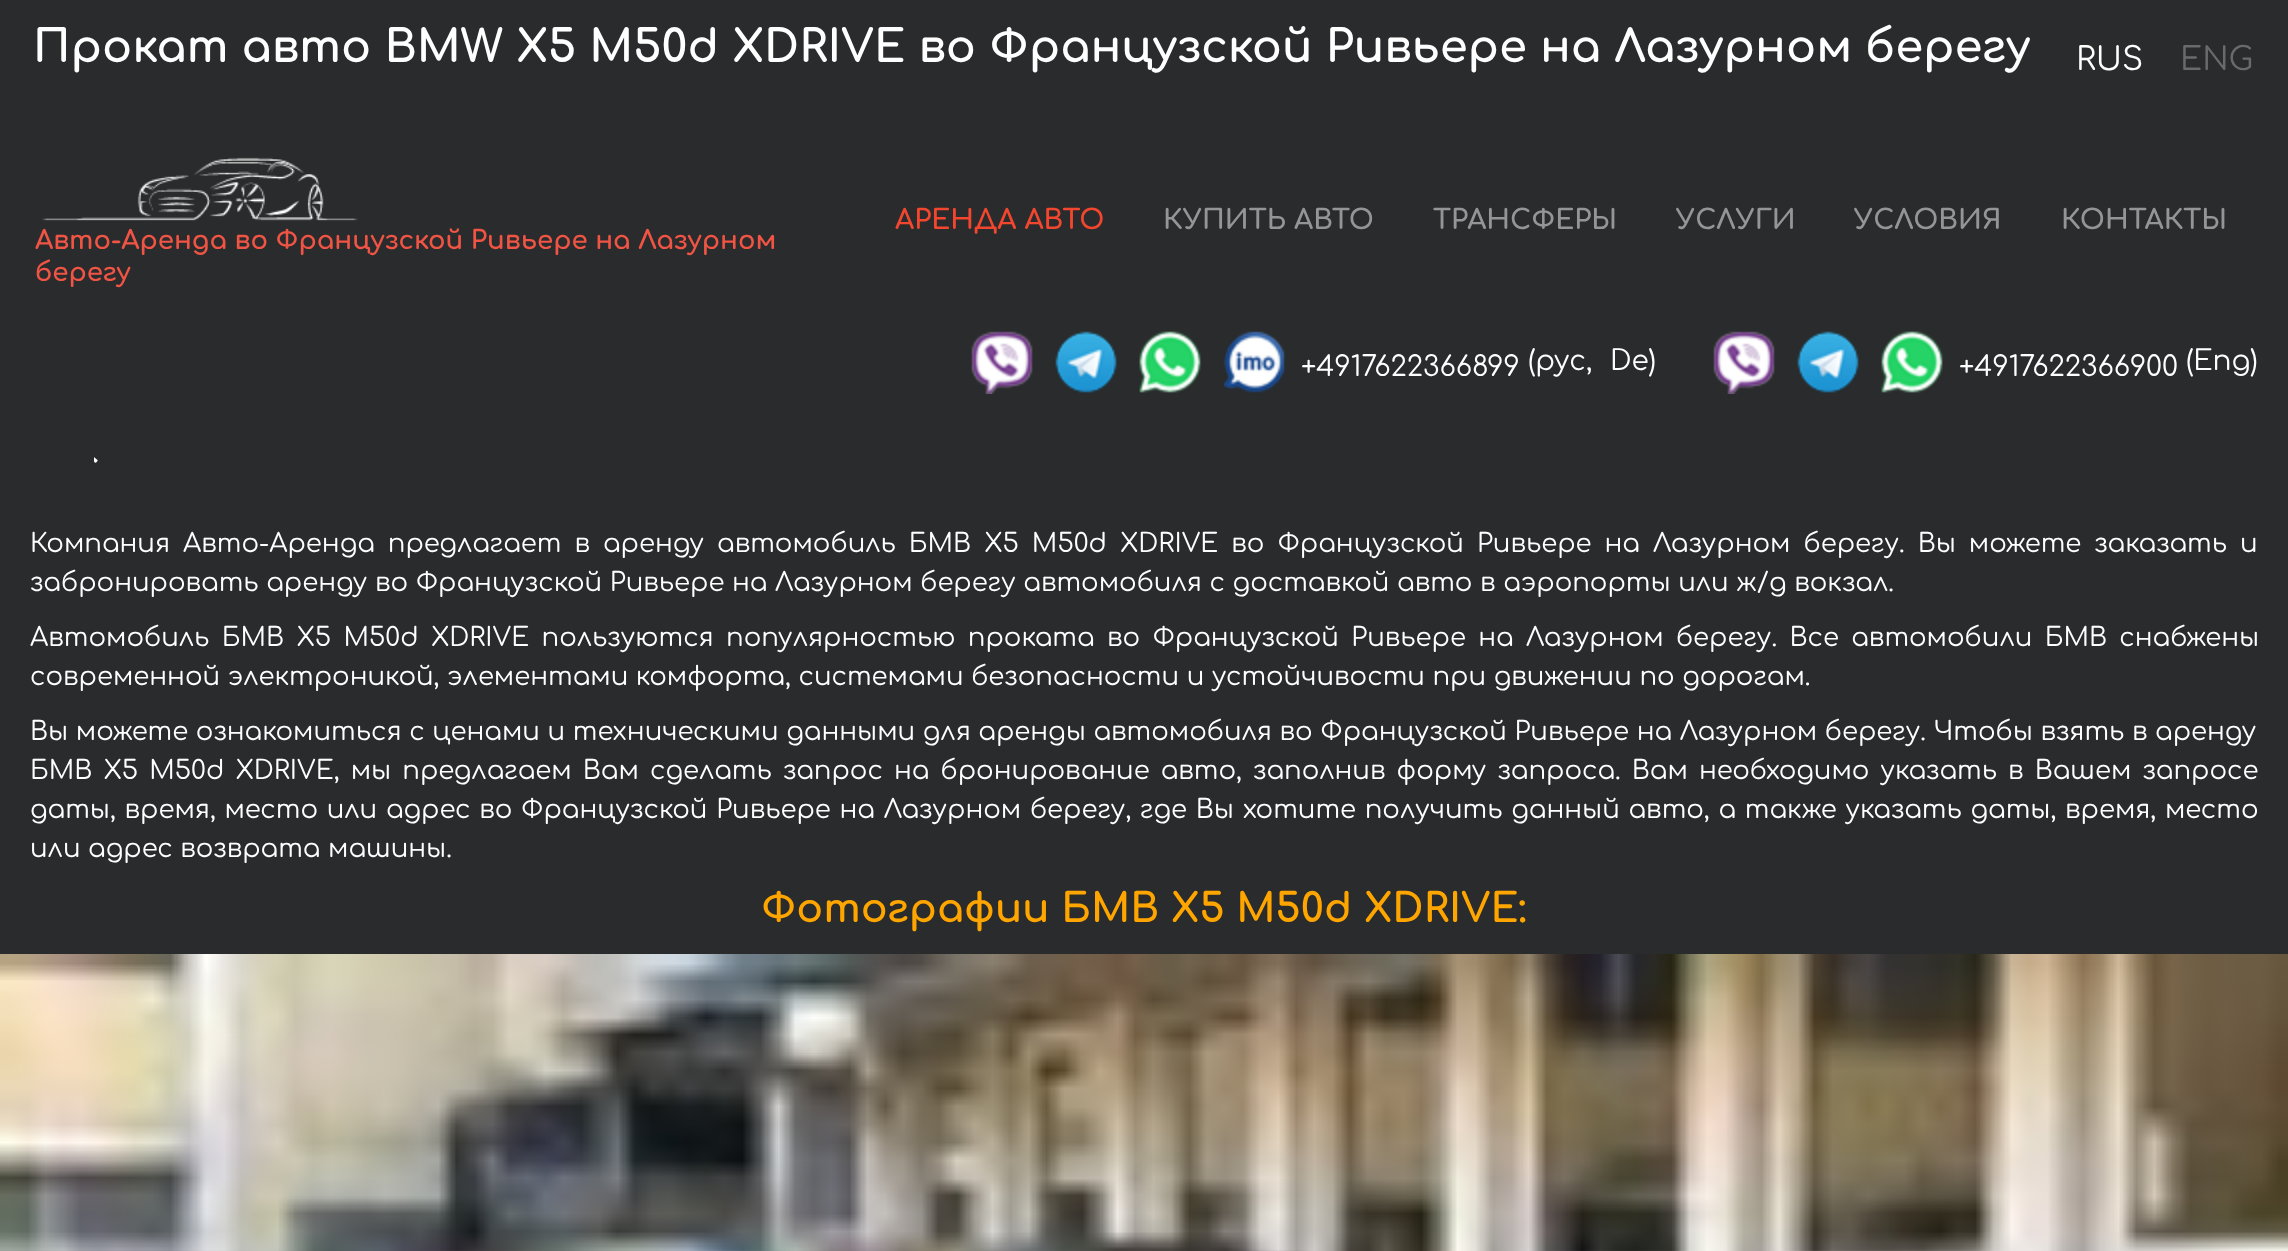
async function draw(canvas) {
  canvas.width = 2288
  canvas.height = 1251
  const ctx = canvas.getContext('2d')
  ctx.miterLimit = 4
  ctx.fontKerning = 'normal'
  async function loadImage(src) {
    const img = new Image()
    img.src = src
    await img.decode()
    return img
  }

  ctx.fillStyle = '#292b2c'
  ctx.fillRect(0, 0, 2288, 1251)
  ctx.font = 'bold 44.8px Comfortaa'
  ctx.fillStyle = '#fff'
  ctx.fillText('Прокат авто BMW X5 M50d XDRIVE во Французской Ривьере на Лазурном берегу', 33, 62)
  ctx.font = '32px Comfortaa'
  ctx.fillText('RUS', 2076, 70)
  ctx.fillStyle = '#696b6b'
  ctx.fillText('ENG', 2180, 70)
  ctx.font = 'bold 27.25px Comfortaa'
  ctx.fillStyle = '#f2462e'
  ctx.fillText('АРЕНДА АВТО', 895, 229)
  ctx.fillStyle = '#949596'
  ctx.fillText('КУПИТЬ АВТО', 1163, 229)
  ctx.fillText('ТРАНСФЕРЫ', 1433, 229)
  ctx.fillText('УСЛУГИ', 1676, 229)
  ctx.fillText('УСЛОВИЯ', 1854, 229)
  ctx.fillText('КОНТАКТЫ', 2061, 229)
  ctx.drawImage(await loadImage('image0.png'), 42, 157, 316, 64)
  ctx.font = 'bold 26px Comfortaa'
  ctx.fillStyle = '#ef5445'
  ctx.fillText('Авто-Аренда во Французской Ривьере на Лазурном', 35, 249)
  ctx.fillText('берегу', 35, 281)
  ctx.drawImage(await loadImage('image1.png'), 971, 331, 62, 63)
  ctx.drawImage(await loadImage('image2.png'), 1055, 331, 62, 62)
  ctx.drawImage(await loadImage('image3.png'), 1139, 331, 62, 62)
  ctx.drawImage(await loadImage('image4.png'), 1223, 331, 62, 62)
  ctx.font = '28px Comfortaa'
  ctx.fillStyle = '#fff'
  ctx.fillText('+4917622366899', 1301, 376)
  ctx.fillText('(рус,', 1528, 370)
  ctx.fillText('De)', 1610, 370)
  ctx.drawImage(await loadImage('image1.png'), 1713, 331, 62, 63)
  ctx.drawImage(await loadImage('image2.png'), 1797, 331, 62, 62)
  ctx.drawImage(await loadImage('image3.png'), 1881, 331, 62, 62)
  ctx.fillText('+4917622366900', 1959, 376)
  ctx.fillText('(Eng)', 2186, 370)
  ctx.drawImage(await loadImage('image5.png'), 94, 457, 4, 6)
  ctx.wordSpacing = '5.4px'
  ctx.font = '26px Comfortaa'
  ctx.fillText('Компания Авто-Аренда предлагает в аренду автомобиль БМВ X5 M50d XDRIVE во Французской Ривьере на Лазурном берегу. Вы можете заказать и', 30, 552)
  ctx.wordSpacing = '0px'
  ctx.fillText('забронировать аренду во Французской Ривьере на Лазурном берегу автомобиля с доставкой авто в аэропорты или ж/д вокзал.', 30, 591)
  ctx.wordSpacing = '4.75px'
  ctx.fillText('Автомобиль БМВ X5 M50d XDRIVE пользуются популярностью проката во Французской Ривьере на Лазурном берегу. Все автомобили БМВ снабжены', 30, 646)
  ctx.wordSpacing = '0px'
  ctx.fillText('современной электроникой, элементами комфорта, системами безопасности и устойчивости при движении по дорогам.', 30, 685)
  ctx.fillText('Вы можете ознакомиться с ценами и техническими данными для аренды автомобиля во Французской Ривьере на Лазурном берегу. Чтобы взять в аренду', 30, 740)
  ctx.wordSpacing = '3.5px'
  ctx.fillText('БМВ X5 M50d XDRIVE, мы предлагаем Вам сделать запрос на бронирование авто, заполнив форму запроса. Вам необходимо указать в Вашем запросе', 30, 779)
  ctx.wordSpacing = '1.1px'
  ctx.fillText('даты, время, место или адрес во Французской Ривьере на Лазурном берегу, где Вы хотите получить данный авто, а также указать даты, время, место', 30, 818)
  ctx.wordSpacing = '0px'
  ctx.fillText('или адрес возврата машины.', 30, 857)
  ctx.font = 'bold 40px Comfortaa'
  ctx.fillStyle = '#ffa500'
  ctx.fillText('Фотографии БМВ X5 M50d XDRIVE:', 761, 922)
  ctx.drawImage(await loadImage('image6.png'), 0, 954, 2288, 297)
}

draw(document.querySelector('canvas'))
